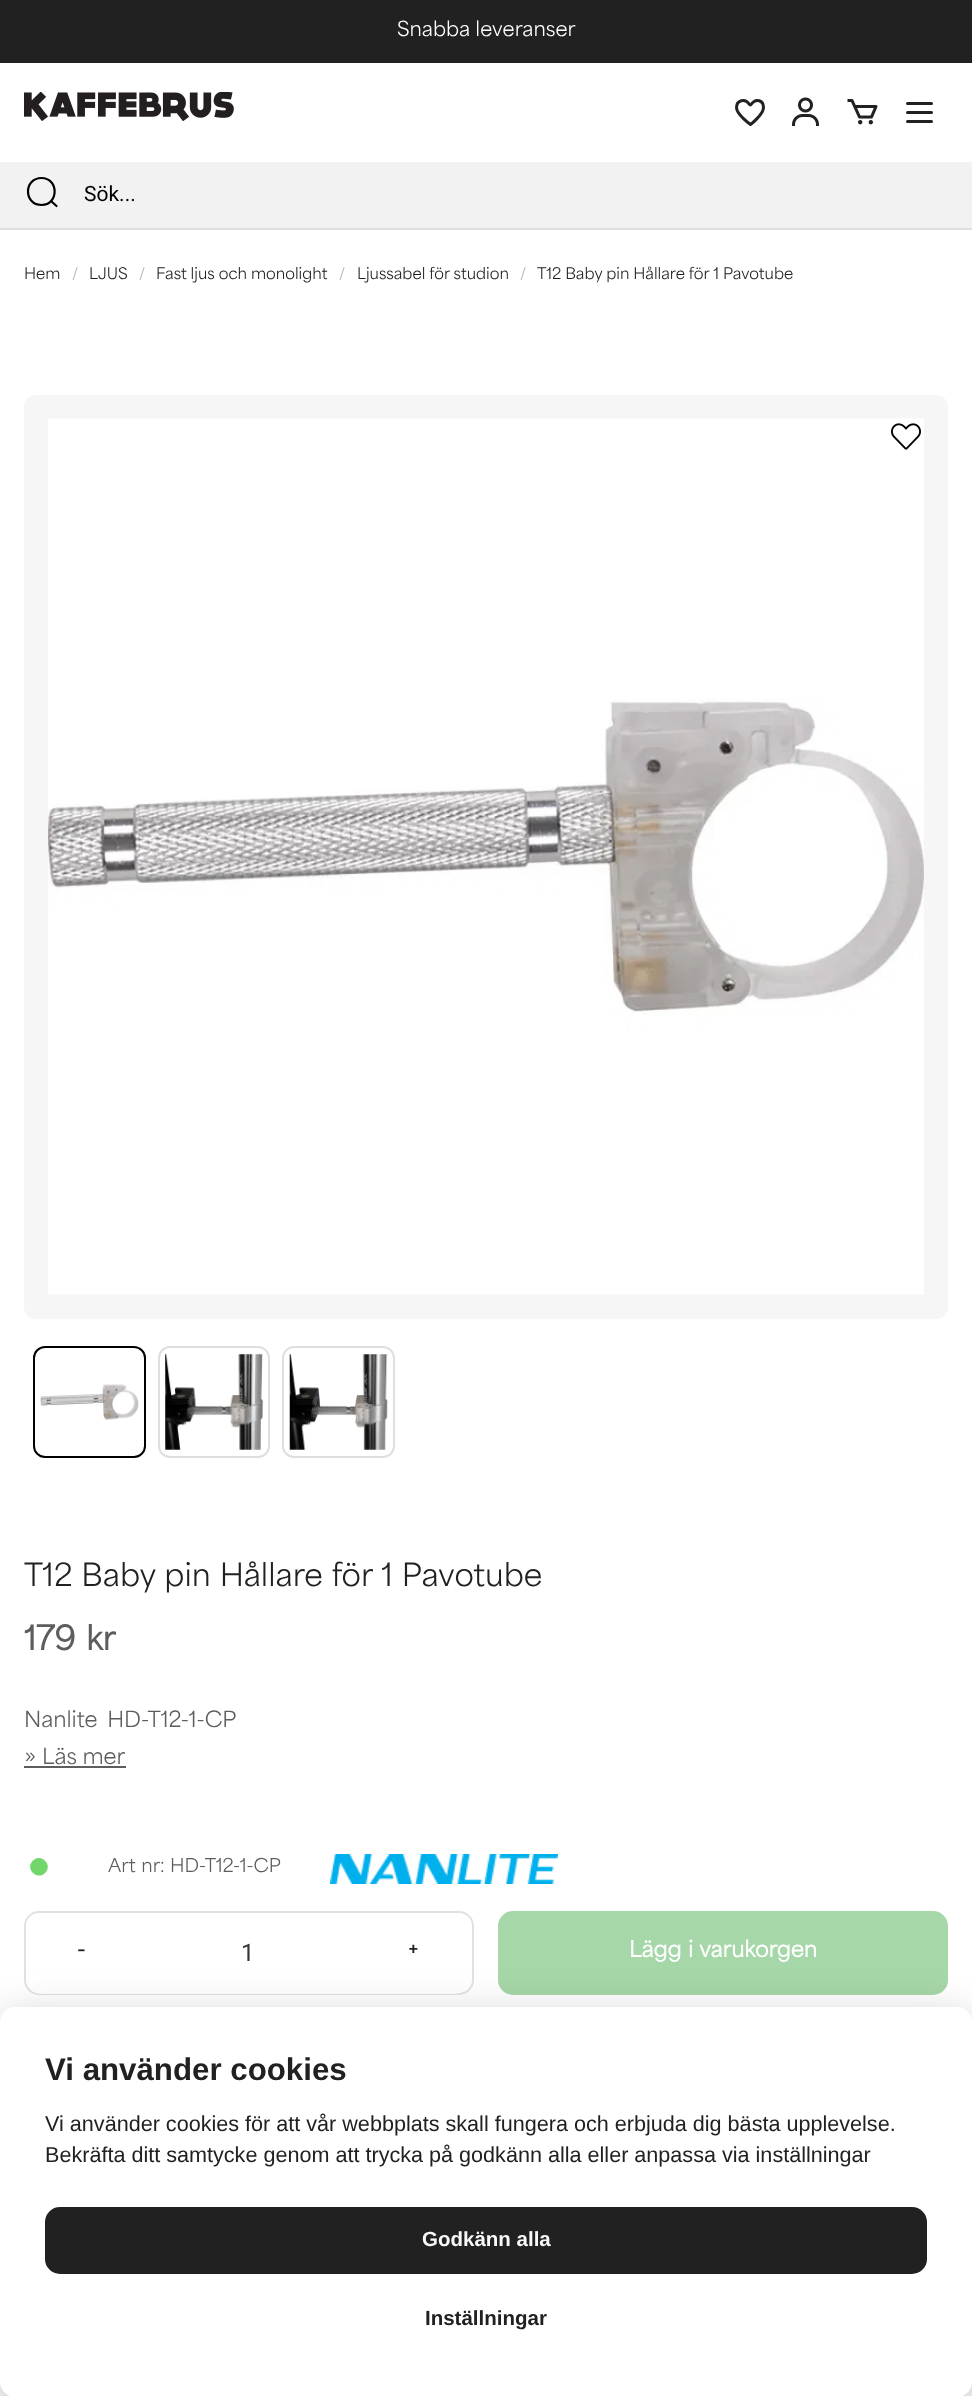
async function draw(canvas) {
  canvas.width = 972
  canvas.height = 2396
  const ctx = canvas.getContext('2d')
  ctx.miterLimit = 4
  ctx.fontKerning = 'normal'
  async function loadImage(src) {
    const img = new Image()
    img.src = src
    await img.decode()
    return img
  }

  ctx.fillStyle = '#fff'
  ctx.fillRect(0, 0, 972, 2396)
  ctx.fillStyle = '#212121'
  ctx.fillRect(0, 0, 972, 63)
  ctx.font = '19.5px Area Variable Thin'
  ctx.fillStyle = '#fff'
  ctx.fillText('Snabba leveranser', 397, 36)
  ctx.drawImage(await loadImage('image0.png'), 24, 92, 210, 29)
  ctx.beginPath()
  ctx.moveTo(749.5, 104.5)
  ctx.bezierCurveTo(745, 97.5, 736.5, 100.5, 736.5, 107.5)
  ctx.bezierCurveTo(736.5, 114.5, 750.5, 124.5, 750.5, 124.5)
  ctx.bezierCurveTo(750.5, 124.5, 763.5, 114.5, 763.5, 107.5)
  ctx.bezierCurveTo(763.5, 100.5, 756, 97.5, 751, 104.5)
  ctx.lineTo(750.5, 105)
  ctx.closePath()
  ctx.strokeStyle = '#212121'
  ctx.lineWidth = 3
  ctx.lineCap = 'round'
  ctx.lineJoin = 'round'
  ctx.stroke()
  ctx.drawImage(await loadImage('image1.png'), 792, 97, 27, 29)
  ctx.drawImage(await loadImage('image2.png'), 847, 99, 31, 26)
  ctx.beginPath()
  ctx.moveTo(907.5, 103.5)
  ctx.lineTo(931.5, 103.5)
  ctx.moveTo(907.5, 112.5)
  ctx.lineTo(931.5, 112.5)
  ctx.moveTo(907.5, 121.5)
  ctx.lineTo(931.5, 121.5)
  ctx.stroke()
  ctx.fillStyle = '#dfdfdf'
  ctx.fillRect(0, 228, 972, 2)
  ctx.fillStyle = '#f2f2f2'
  ctx.fillRect(0, 162, 972, 66)
  ctx.beginPath()
  ctx.moveTo(41.5, 205)
  ctx.bezierCurveTo(59, 205, 59, 178, 41.5, 178)
  ctx.bezierCurveTo(23.5, 178, 23.5, 205, 41.5, 205)
  ctx.closePath()
  ctx.strokeStyle = '#000'
  ctx.lineWidth = 2.2
  ctx.lineCap = 'butt'
  ctx.lineJoin = 'miter'
  ctx.stroke()
  ctx.beginPath()
  ctx.moveTo(51.5, 201.5)
  ctx.lineTo(56.5, 206)
  ctx.lineCap = 'round'
  ctx.stroke()
  ctx.font = '21px Roboto'
  ctx.fillStyle = '#000'
  ctx.fillText('Sök...', 84, 201)
  ctx.font = '15px Area Variable Thin'
  ctx.fillStyle = '#212121'
  ctx.fillText('Hem', 24, 279)
  ctx.fillStyle = '#b5b5b5'
  ctx.fillText('/', 72, 279)
  ctx.fillStyle = '#212121'
  ctx.fillText('LJUS', 89, 279)
  ctx.fillStyle = '#b5b5b5'
  ctx.fillText('/', 139, 279)
  ctx.fillStyle = '#212121'
  ctx.fillText('Fast ljus och monolight', 156, 279)
  ctx.fillStyle = '#b5b5b5'
  ctx.fillText('/', 339, 279)
  ctx.fillStyle = '#212121'
  ctx.fillText('Ljussabel för studion', 357, 279)
  ctx.fillStyle = '#b5b5b5'
  ctx.fillText('/', 520, 279)
  ctx.fillStyle = '#212121'
  ctx.fillText('T12 Baby pin Hållare för 1 Pavotube', 537, 279)
  ctx.fillStyle = '#f6f6f6'
  ctx.beginPath()
  ctx.roundRect(24, 395, 924, 924, 12)
  ctx.fill()
  ctx.drawImage(await loadImage('image3.png'), 48, 418, 876, 877)
  ctx.beginPath()
  ctx.roundRect(34, 1347, 111, 110, 11)
  ctx.lineWidth = 2
  ctx.stroke()
  ctx.drawImage(await loadImage('image4.png'), 40, 1384, 99, 36)
  ctx.beginPath()
  ctx.roundRect(159, 1347, 110, 110, 11)
  ctx.strokeStyle = '#dfdfdf'
  ctx.stroke()
  ctx.drawImage(await loadImage('image5.png'), 165, 1353, 98, 97)
  ctx.beginPath()
  ctx.roundRect(283, 1347, 111, 110, 11)
  ctx.stroke()
  ctx.drawImage(await loadImage('image6.png'), 289, 1354, 99, 96)
  ctx.drawImage(await loadImage('image7.png'), 891, 423, 30, 27)
  ctx.wordSpacing = '1px'
  ctx.font = '30px Area Variable Thin'
  ctx.fillStyle = '#212121'
  ctx.fillText('T12 Baby pin Hållare för 1 Pavotube', 24, 1586)
  ctx.wordSpacing = '2px'
  ctx.font = 'bold 31.5px Area Variable Thin'
  ctx.fillStyle = '#5d5d5d'
  ctx.fillText('179 kr', 24, 1650)
  ctx.wordSpacing = '4px'
  ctx.font = '21px Area Variable Thin'
  ctx.fillText('Nanlite HD-T12-1-CP', 24, 1727)
  ctx.wordSpacing = '0px'
  ctx.fillText('»', 24, 1764)
  ctx.fillRect(24, 1766, 102, 2)
  ctx.fillText('Läs mer', 42, 1764)
  ctx.fillStyle = '#72d76a'
  ctx.beginPath()
  ctx.moveTo(33, 1860.5)
  ctx.bezierCurveTo(41, 1852.5, 53.5, 1865, 45, 1873)
  ctx.bezierCurveTo(37, 1881, 24.5, 1868.5, 33, 1860.5)
  ctx.closePath()
  ctx.fill()
  ctx.wordSpacing = '1px'
  ctx.font = '18px Area Variable Thin'
  ctx.fillStyle = '#5d5d5d'
  ctx.fillText('Art nr:', 108, 1872)
  ctx.wordSpacing = '0px'
  ctx.fillText('HD-T12-1-CP', 170, 1872)
  ctx.drawImage(await loadImage('image8.png'), 330, 1854, 228, 30)
  ctx.beginPath()
  ctx.roundRect(25, 1912, 448, 82, 14)
  ctx.strokeStyle = '#e1e1e1'
  ctx.stroke()
  ctx.fillStyle = '#fff'
  ctx.beginPath()
  ctx.roundRect(26, 1913, 112, 81, [15, 0, 0, 15])
  ctx.fill()
  ctx.font = 'bold 21px Area Variable Thin'
  ctx.fillStyle = '#212121'
  ctx.fillText('-', 77, 1957)
  ctx.fillStyle = '#fff'
  ctx.fillRect(138, 1993, 221, 1)
  ctx.font = '24px Roboto'
  ctx.fillStyle = '#363636'
  ctx.fillText('1', 241, 1961)
  ctx.fillStyle = '#fff'
  ctx.beginPath()
  ctx.roundRect(359, 1913, 111, 81, [0, 15, 15, 0])
  ctx.fill()
  ctx.font = 'bold 21px Area Variable Thin'
  ctx.fillStyle = '#212121'
  ctx.fillText('+', 408, 1957)
  ctx.fillStyle = '#a6d7a8'
  ctx.beginPath()
  ctx.roundRect(499, 1912, 448, 82, 14)
  ctx.fill()
  ctx.strokeStyle = '#a6d7a8'
  ctx.stroke()
  ctx.wordSpacing = '1px'
  ctx.fillStyle = '#fff'
  ctx.fillText('Lägg i varukorgen', 629, 1957)
  ctx.fillStyle = '#02020347'
  ctx.filter = 'blur(22.5px)'
  ctx.beginPath()
  ctx.roundRect(0, 2022, 972, 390, 15)
  ctx.fill()
  ctx.filter = 'none'
  ctx.fillStyle = '#fff'
  ctx.beginPath()
  ctx.roundRect(0, 2007, 972, 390, 15)
  ctx.fill()
  ctx.wordSpacing = '0px'
  ctx.font = 'bold 31.25px Liberation Sans'
  ctx.fillStyle = '#212121'
  ctx.fillText('Vi använder cookies', 45, 2080)
  ctx.font = '21.6px Liberation Sans'
  ctx.fillText('Vi använder cookies för att vår webbplats skall fungera och erbjuda dig bästa upplevelse.', 45, 2131)
  ctx.fillText('Bekräfta ditt samtycke genom att trycka på godkänn alla eller anpassa via inställningar', 45, 2162)
  ctx.beginPath()
  ctx.roundRect(46, 2208, 880, 65, 14)
  ctx.fill()
  ctx.strokeStyle = '#212121'
  ctx.stroke()
  ctx.font = 'bold 20.5px Liberation Sans'
  ctx.fillStyle = '#f9f9f9'
  ctx.fillText('Godkänn alla', 422, 2246)
  ctx.fillStyle = '#212121'
  ctx.fillText('Inställningar', 425, 2325)
}

draw(document.querySelector('canvas'))
